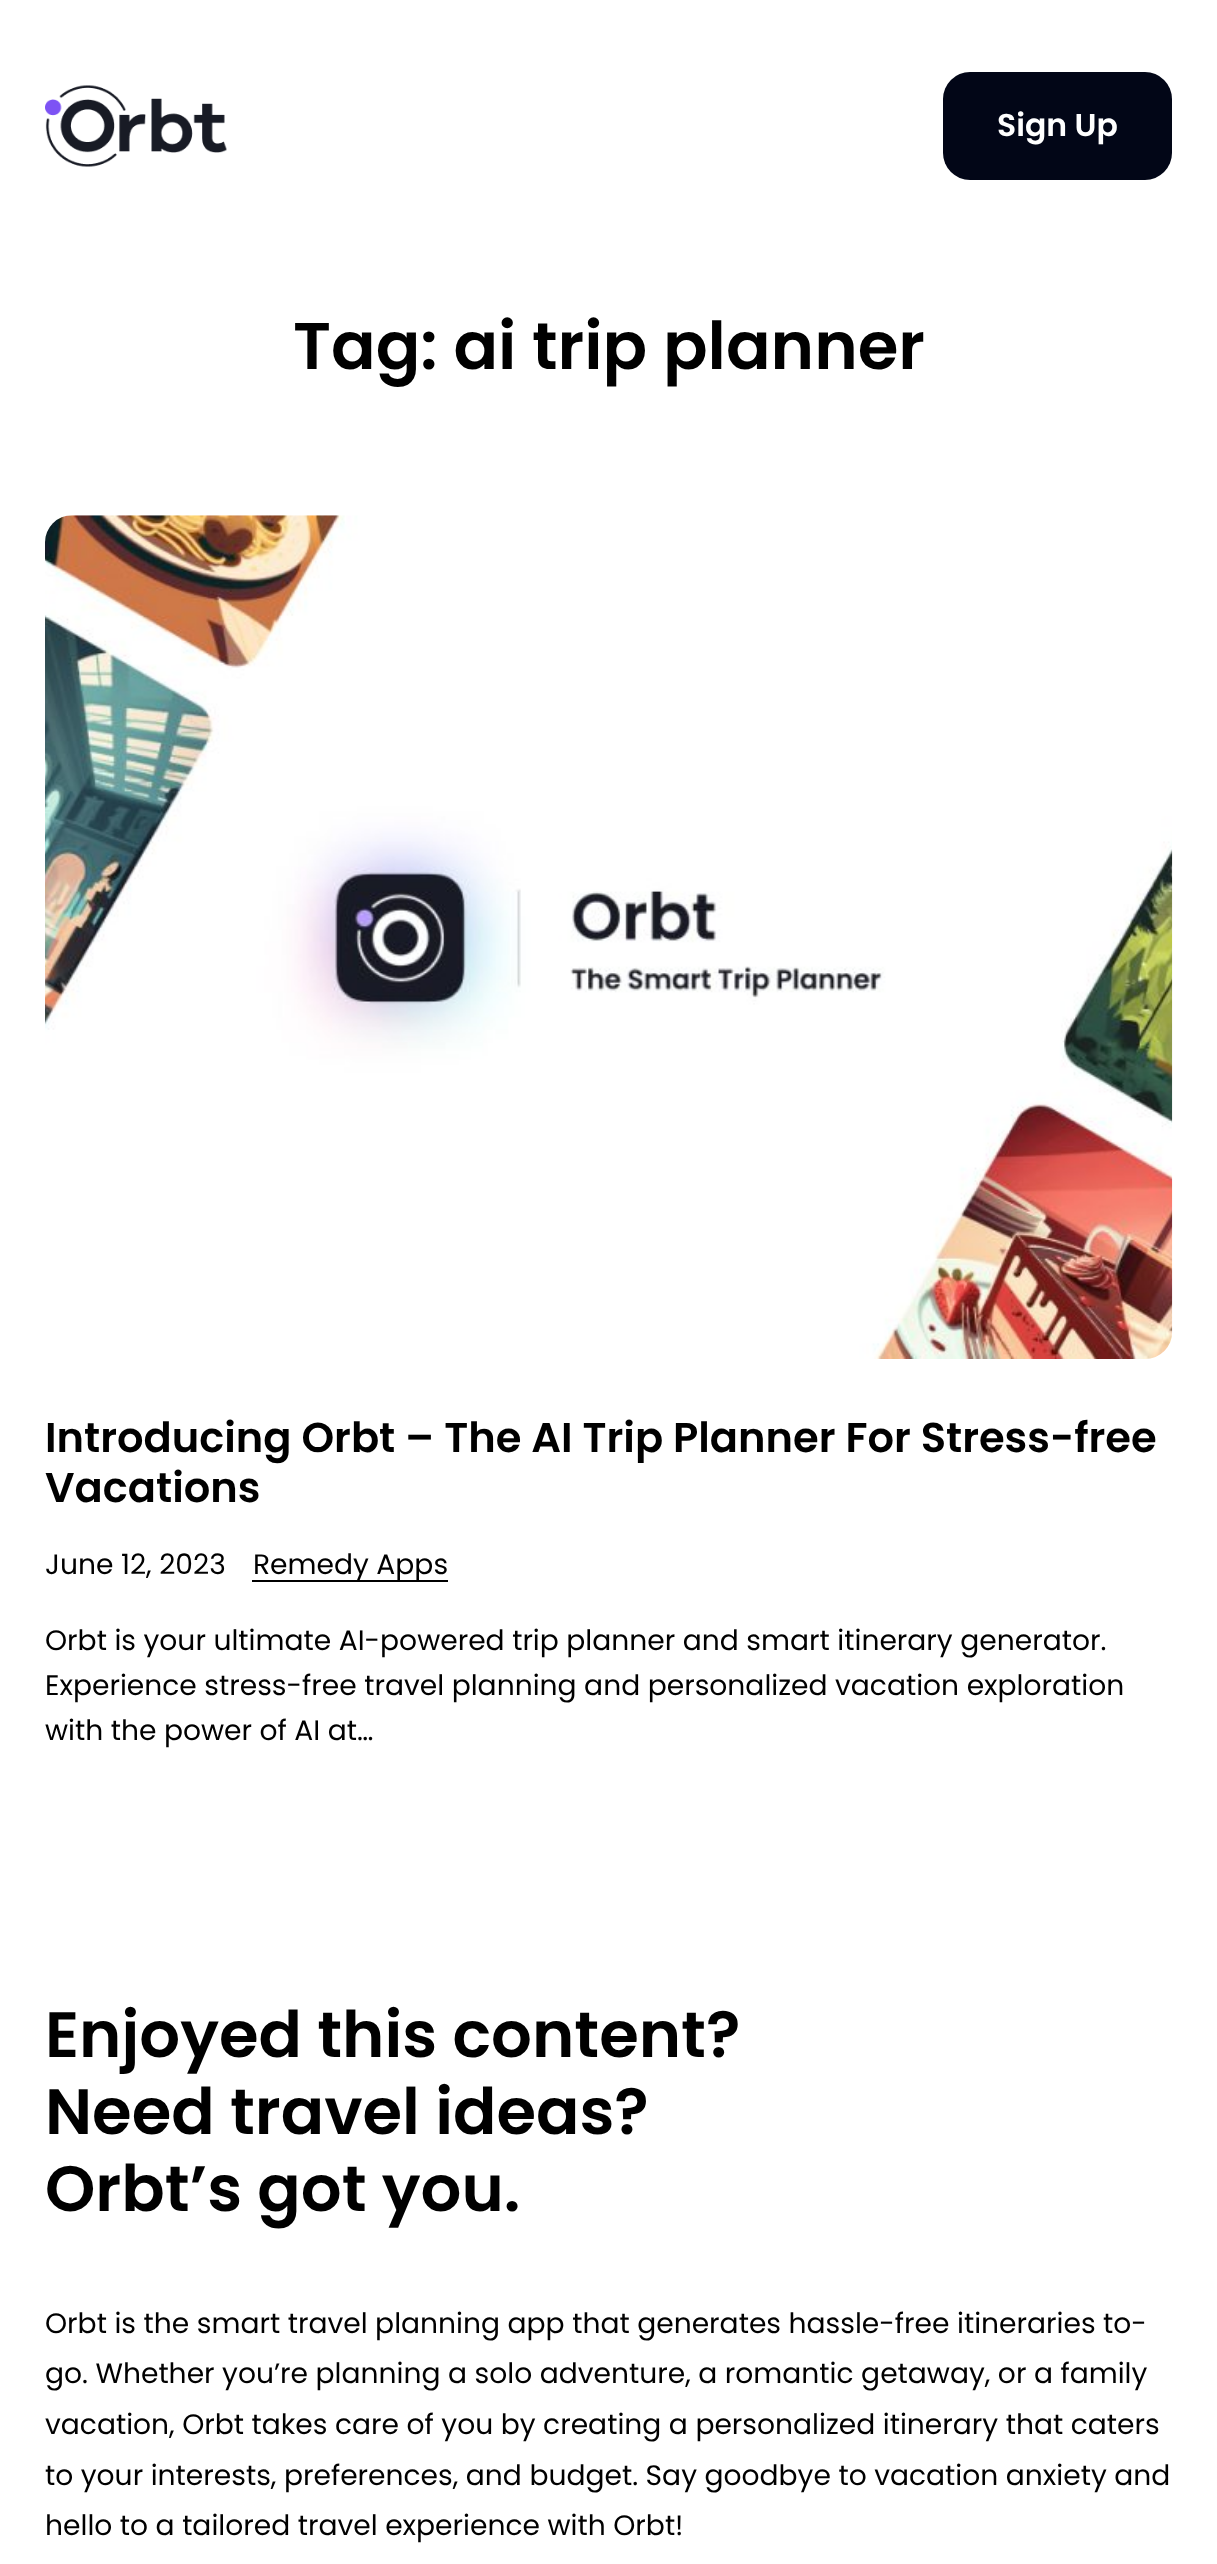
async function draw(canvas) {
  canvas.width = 1217
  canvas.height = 2564
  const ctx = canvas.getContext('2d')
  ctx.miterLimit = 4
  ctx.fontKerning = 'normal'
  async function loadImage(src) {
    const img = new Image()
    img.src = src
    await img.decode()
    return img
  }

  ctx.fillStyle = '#fff'
  ctx.fillRect(0, 0, 1217, 2564)
  ctx.drawImage(await loadImage('image0.png'), 45, 85, 182, 82)
  ctx.fillStyle = '#020617'
  ctx.beginPath()
  ctx.roundRect(943, 72, 229, 108, 27)
  ctx.fill()
  ctx.font = '600 31.5px Poppins'
  ctx.fillStyle = '#fff'
  ctx.fillText('Sign Up', 997, 136)
  ctx.font = '600 65.9px Poppins'
  ctx.fillStyle = '#000'
  ctx.fillText('Tag: ai trip planner', 293, 369)
  ctx.drawImage(await loadImage('image1.png'), 45, 515, 1128, 844)
  ctx.font = '600 41.6px Poppins'
  ctx.fillText('Introducing Orbt – The AI Trip Planner For Stress-free', 45, 1452)
  ctx.fillText('Vacations', 45, 1502)
  ctx.font = '28.15px Poppins'
  ctx.fillText('June 12, 2023', 45, 1574)
  ctx.fillRect(252, 1580, 196, 2)
  ctx.fillText('Remedy Apps', 253, 1574)
  ctx.fillText('Orbt is your ultimate AI-powered trip planner and smart itinerary generator.', 45, 1650)
  ctx.fillText('Experience stress-free travel planning and personalized vacation exploration', 45, 1695)
  ctx.fillText('with the power of AI at…', 45, 1740)
  ctx.font = '600 64.1px Poppins'
  ctx.fillText('Enjoyed this content?', 45, 2057)
  ctx.fillText('Need travel ideas?', 45, 2134)
  ctx.fillText('Orbt’s got you.', 45, 2211)
  ctx.font = '28.15px Poppins'
  ctx.fillText('Orbt is the smart travel planning app that generates hassle-free itineraries to-', 45, 2333)
  ctx.fillText('go. Whether you’re planning a solo adventure, a romantic getaway, or a family', 45, 2383)
  ctx.fillText('vacation, Orbt takes care of you by creating a personalized itinerary that caters', 45, 2434)
  ctx.fillText('to your interests, preferences, and budget. Say goodbye to vacation anxiety and', 45, 2485)
  ctx.fillText('hello to a tailored travel experience with Orbt!', 45, 2535)
}

draw(document.querySelector('canvas'))
